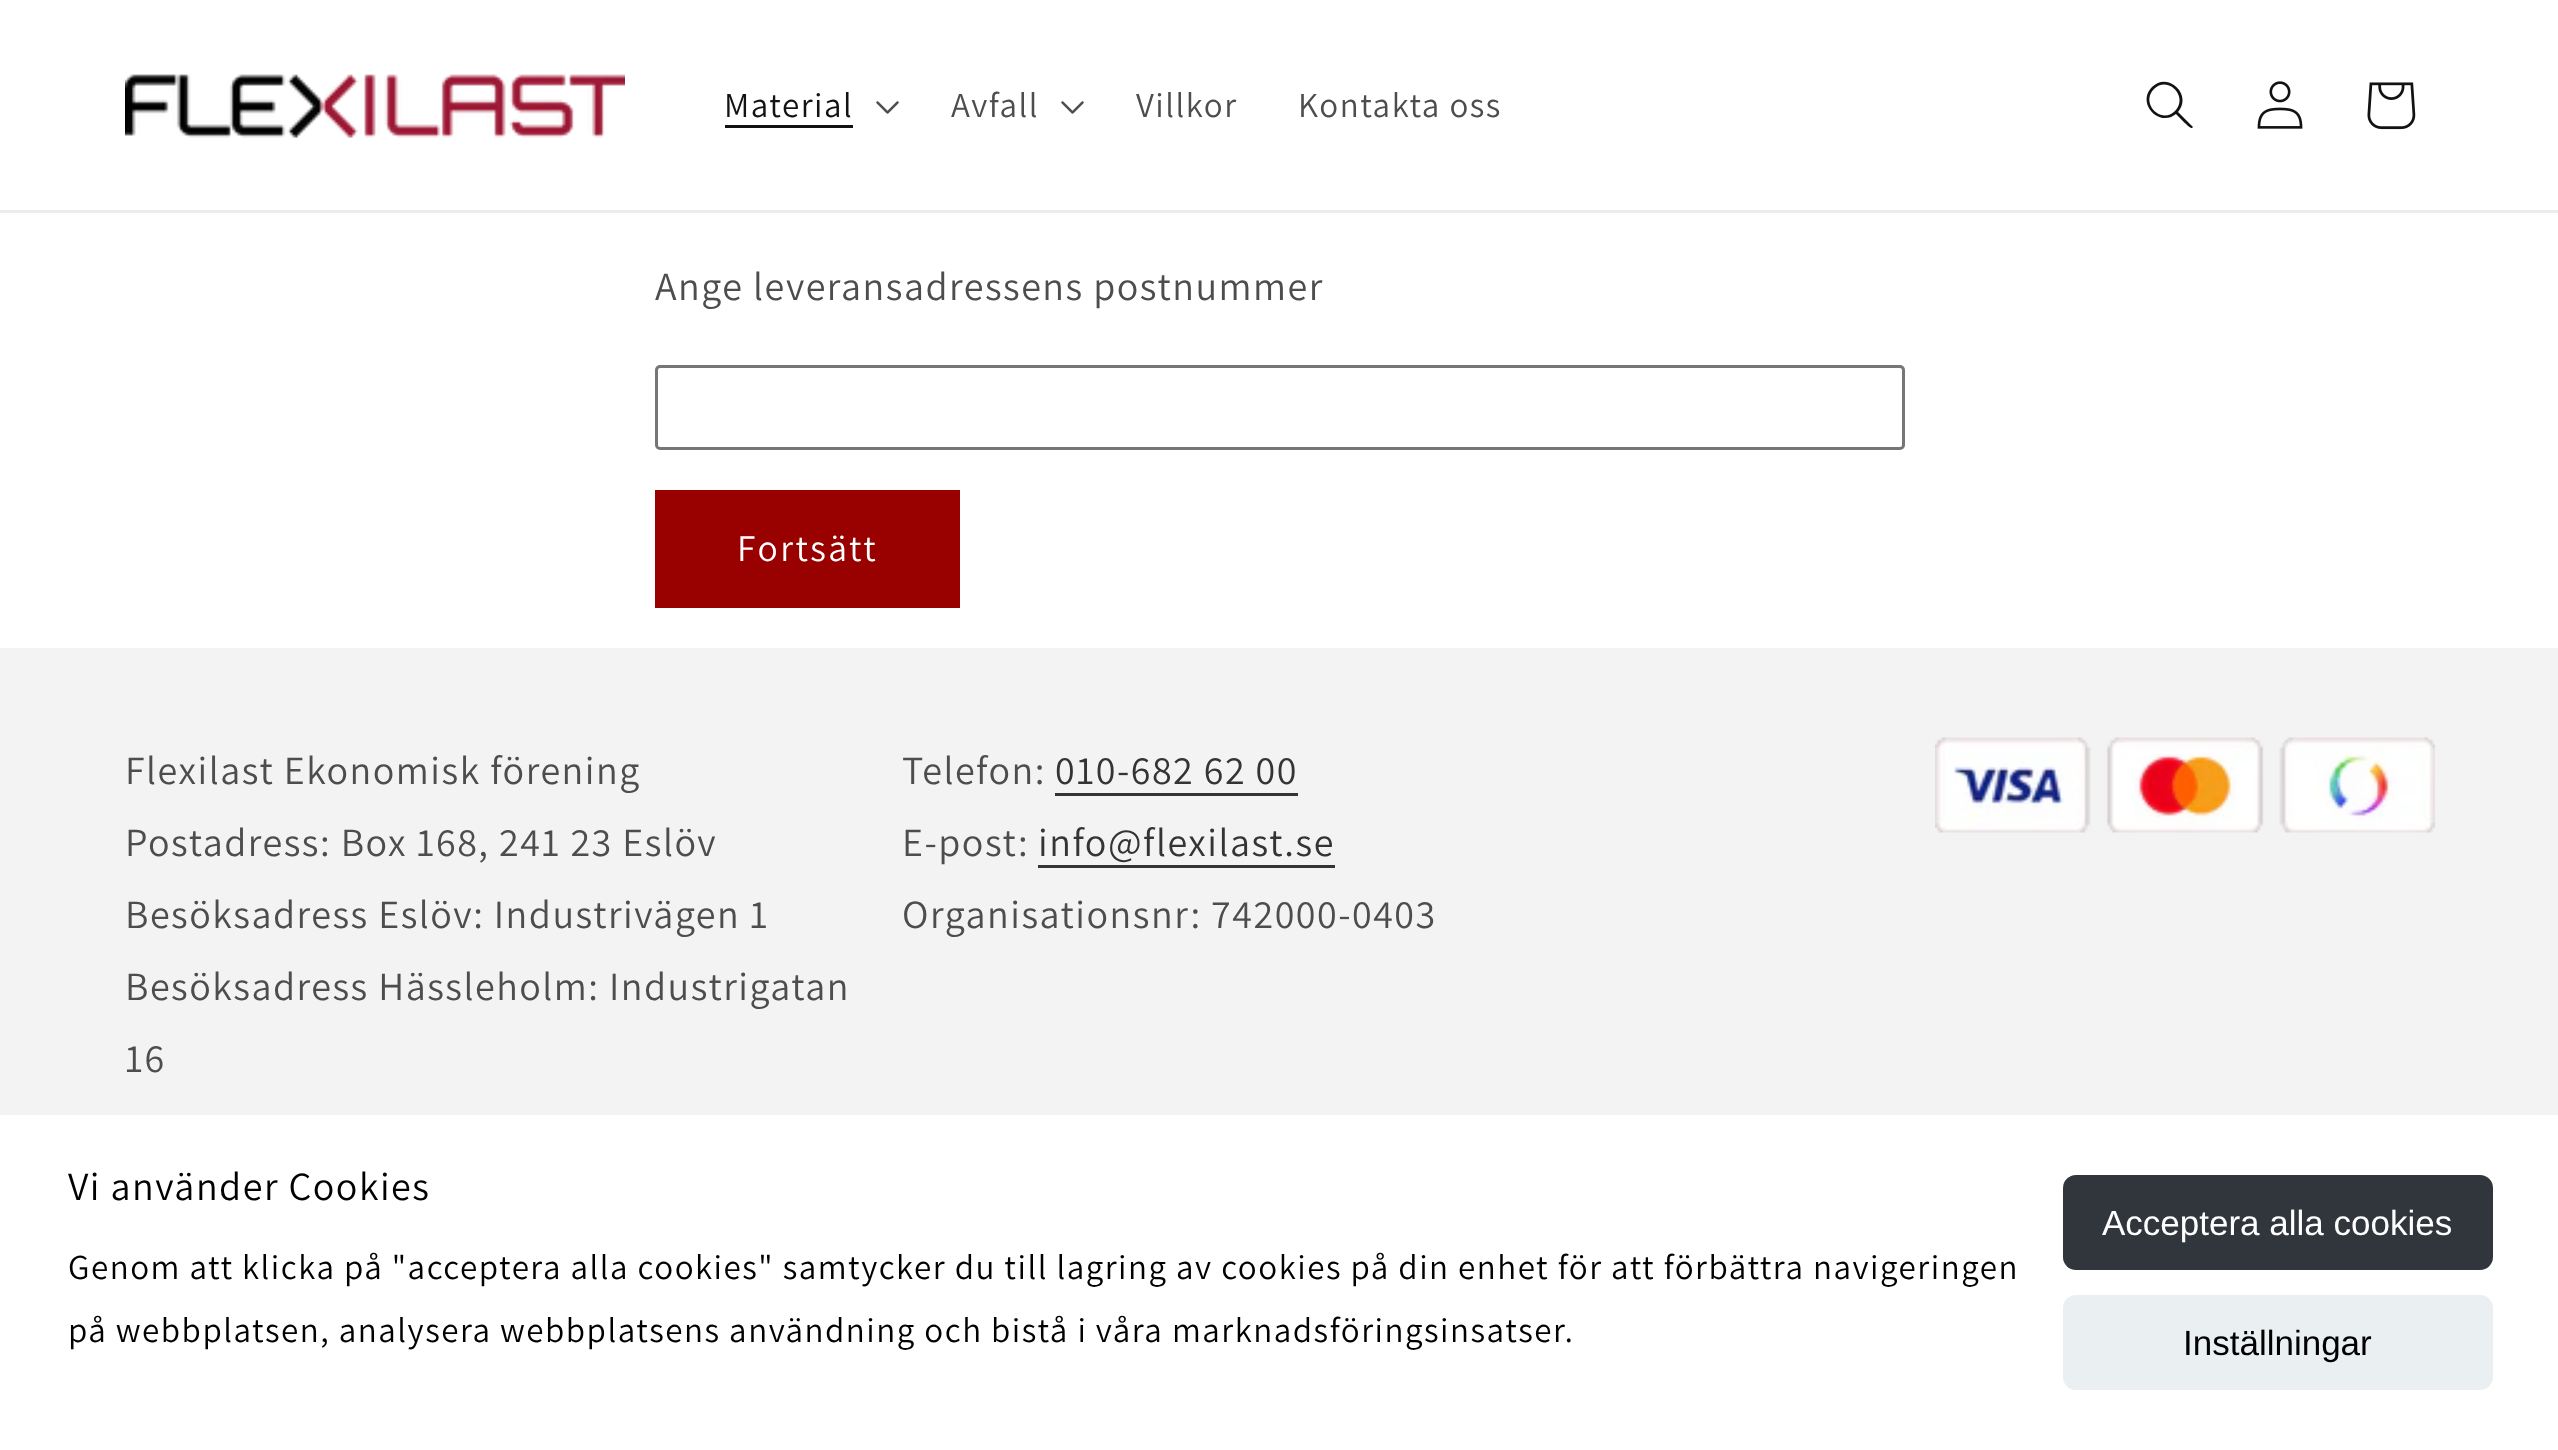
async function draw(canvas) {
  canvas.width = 2558
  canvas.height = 1450
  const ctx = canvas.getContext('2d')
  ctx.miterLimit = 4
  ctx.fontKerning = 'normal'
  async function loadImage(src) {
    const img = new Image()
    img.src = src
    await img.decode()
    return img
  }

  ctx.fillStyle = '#fff'
  ctx.fillRect(0, 0, 2558, 1450)
  ctx.fillStyle = '#ececec'
  ctx.fillRect(0, 210, 2558, 3)
  ctx.drawImage(await loadImage('image0.png'), 125, 74, 500, 64)
  ctx.letterSpacing = '1.5px'
  ctx.font = '35px Assistant'
  ctx.fillStyle = '#121212'
  ctx.fillText('Material', 724, 117)
  ctx.fillRect(725, 125, 128, 3)
  ctx.drawImage(await loadImage('image1.png'), 876, 101, 23, 13)
  ctx.fillStyle = '#4d4d4d'
  ctx.fillText('Avfall', 951, 117)
  ctx.drawImage(await loadImage('image1.png'), 1061, 101, 23, 13)
  ctx.fillText('Villkor', 1136, 117)
  ctx.fillText('Kontakta oss', 1298, 117)
  ctx.fillStyle = '#121212'
  ctx.beginPath()
  ctx.moveTo(2175, 111)
  ctx.bezierCurveTo(2161, 125, 2140, 103, 2154, 89)
  ctx.bezierCurveTo(2168, 75, 2189, 97, 2175, 111)
  ctx.closePath()
  ctx.moveTo(2176, 114)
  ctx.bezierCurveTo(2159, 128, 2136, 103, 2152, 87)
  ctx.bezierCurveTo(2168, 71, 2193, 95, 2178, 112)
  ctx.lineTo(2193, 127)
  ctx.lineTo(2192, 128)
  ctx.bezierCurveTo(2190, 129, 2178, 116, 2176, 114)
  ctx.closePath()
  ctx.fill('evenodd')
  ctx.drawImage(await loadImage('image2.png'), 2257, 81, 46, 48)
  ctx.drawImage(await loadImage('image3.png'), 2367, 82, 49, 48)
  ctx.font = '40px Assistant'
  ctx.fillStyle = '#4d4d4d'
  ctx.fillText('Ange leveransadressens postnummer', 655, 300)
  ctx.beginPath()
  ctx.roundRect(656.5, 366.5, 1247, 82, 3.5)
  ctx.strokeStyle = '#767676'
  ctx.lineWidth = 3
  ctx.stroke()
  ctx.fillStyle = '#900'
  ctx.fillRect(655, 490, 305, 118)
  ctx.letterSpacing = '2.5px'
  ctx.font = '37.5px Assistant'
  ctx.fillStyle = '#fff'
  ctx.fillText('Fortsätt', 737, 561)
  ctx.fillStyle = '#f3f3f3'
  ctx.fillRect(0, 648, 2558, 467)
  ctx.letterSpacing = '1.5px'
  ctx.font = '40px Assistant'
  ctx.fillStyle = '#4d4d4d'
  ctx.fillText('Flexilast Ekonomisk förening', 125, 784)
  ctx.fillText('Postadress: Box 168, 241 23 Eslöv', 125, 856)
  ctx.fillText('Besöksadress Eslöv: Industrivägen 1', 125, 928)
  ctx.fillText('Besöksadress Hässleholm: Industrigatan', 125, 1000)
  ctx.fillText('16', 125, 1072)
  ctx.fillText('Telefon:', 902, 784)
  ctx.fillStyle = '#343434'
  ctx.fillText('010-682 62 00', 1055, 784)
  ctx.fillRect(1055, 793, 243, 3)
  ctx.fillStyle = '#4d4d4d'
  ctx.fillText('E-post:', 902, 856)
  ctx.fillStyle = '#343434'
  ctx.fillText('info@flexilast.se', 1038, 856)
  ctx.fillRect(1038, 865, 297, 3)
  ctx.fillStyle = '#4d4d4d'
  ctx.fillText('Organisationsnr: 742000-0403', 902, 928)
  ctx.drawImage(await loadImage('image4.png'), 1935, 737, 500, 96)
  ctx.fillStyle = '#000'
  ctx.fillText('Vi använder Cookies', 68, 1200)
  ctx.font = '35px Assistant'
  ctx.fillText('Genom att klicka på "acceptera alla cookies" samtycker du till lagring av cookies på din enhet för att förbättra navigeringen', 68, 1279)
  ctx.fillText('på webbplatsen, analysera webbplatsens användning och bistå i våra marknadsföringsinsatser.', 68, 1342)
  ctx.fillStyle = '#30363c'
  ctx.beginPath()
  ctx.roundRect(2063, 1175, 430, 95, 13)
  ctx.fill()
  ctx.letterSpacing = '0px'
  ctx.font = '35px Liberation Sans'
  ctx.fillStyle = '#fff'
  ctx.fillText('Acceptera alla cookies', 2102, 1235)
  ctx.fillStyle = '#eaeff2'
  ctx.beginPath()
  ctx.roundRect(2063, 1295, 430, 95, 13)
  ctx.fill()
  ctx.fillStyle = '#000'
  ctx.fillText('Inställningar', 2183, 1355)
}

draw(document.querySelector('canvas'))
